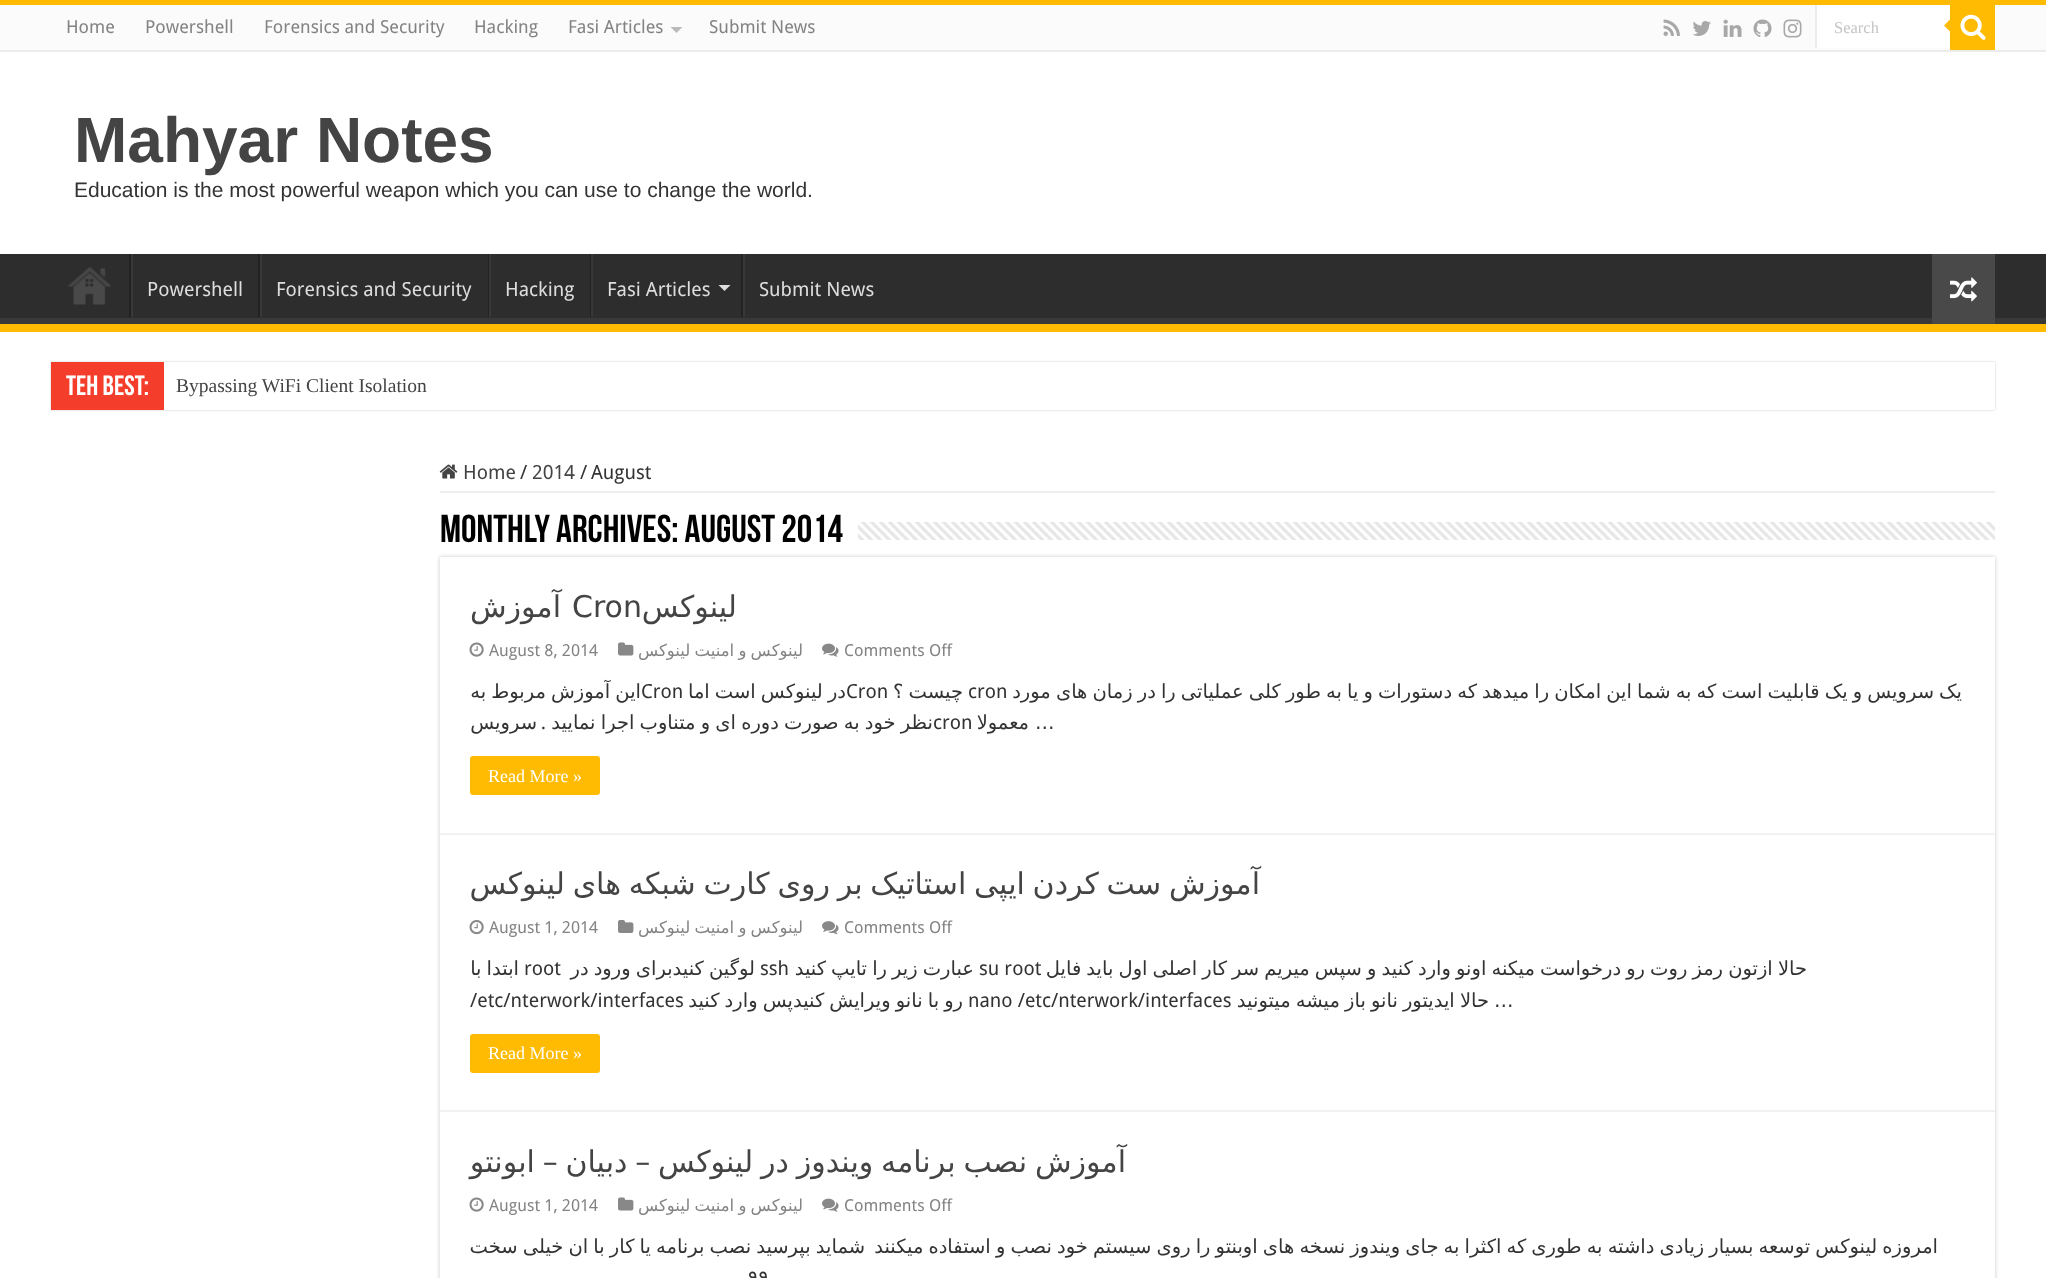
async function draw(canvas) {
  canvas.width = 2046
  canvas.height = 1278
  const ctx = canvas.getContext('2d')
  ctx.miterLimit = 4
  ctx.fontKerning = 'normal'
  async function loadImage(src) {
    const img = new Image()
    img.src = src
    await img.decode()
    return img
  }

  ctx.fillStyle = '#fff'
  ctx.fillRect(0, 0, 2046, 1278)
  ctx.fillStyle = '#ffbb01'
  ctx.fillRect(0, 0, 2046, 5)
  ctx.fillStyle = '#fbfbfb'
  ctx.fillRect(0, 5, 2046, 45)
  ctx.fillStyle = '#ececec'
  ctx.fillRect(0, 50, 2046, 2)
  ctx.fillStyle = '#fff'
  ctx.fillRect(1817, 5, 133, 43)
  ctx.fillStyle = '#ffbb01'
  ctx.beginPath()
  ctx.moveTo(1950, 19.5)
  ctx.lineTo(1950, 31.5)
  ctx.lineTo(1944, 25.5)
  ctx.closePath()
  ctx.fill()
  ctx.fillRect(1950, 5, 45, 45)
  ctx.drawImage(await loadImage('image0.png'), 1960, 14, 26, 26)
  ctx.fillStyle = '#ececec'
  ctx.fillRect(1815, 5, 2, 43)
  ctx.font = '16.5px Liberation Serif'
  ctx.fillStyle = '#c5c5c5'
  ctx.fillText('Search', 1834, 33)
  ctx.drawImage(await loadImage('image1.png'), 1783, 19, 19, 19)
  ctx.drawImage(await loadImage('image2.png'), 1753, 19, 19, 18)
  ctx.drawImage(await loadImage('image3.png'), 1723, 19, 19, 18)
  ctx.drawImage(await loadImage('image4.png'), 1693, 21, 18, 15)
  ctx.drawImage(await loadImage('image5.png'), 1663, 19, 17, 17)
  ctx.font = '18px Droid Sans'
  ctx.fillStyle = '#838383'
  ctx.fillText('Submit News', 709, 33)
  ctx.fillStyle = '#bbb'
  ctx.beginPath()
  ctx.moveTo(670.5, 27)
  ctx.lineTo(682.5, 27)
  ctx.lineTo(676.5, 33)
  ctx.closePath()
  ctx.fill()
  ctx.fillStyle = '#838383'
  ctx.fillText('Fasi Articles', 568, 33)
  ctx.fillText('Hacking', 474, 33)
  ctx.fillText('Forensics and Security', 264, 33)
  ctx.fillText('Powershell', 145, 33)
  ctx.fillText('Home', 66, 33)
  ctx.font = 'bold 64px Liberation Sans'
  ctx.fillStyle = '#444'
  ctx.fillText('Mahyar Notes', 74, 162)
  ctx.font = '21px Liberation Sans'
  ctx.fillStyle = '#333'
  ctx.fillText('Education is the most powerful weapon which you can use to change the world.', 74, 197)
  ctx.fillStyle = '#2d2d2d'
  ctx.fillRect(0, 254, 2046, 64)
  ctx.save()
  ctx.beginPath()
  ctx.rect(0, 254, 2046, 70)
  ctx.clip()
  ctx.fillStyle = '#393939'
  ctx.beginPath()
  ctx.moveTo(-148, 105)
  ctx.lineTo(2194, 105)
  ctx.lineTo(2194, 472)
  ctx.lineTo(-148, 472)
  ctx.closePath()
  ctx.moveTo(-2, 244)
  ctx.lineTo(2044, 244)
  ctx.bezierCurveTo(2045, 244, 2046, 245, 2046, 246)
  ctx.lineTo(2046, 316)
  ctx.bezierCurveTo(2046, 317, 2045, 318, 2044, 318)
  ctx.lineTo(-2, 318)
  ctx.bezierCurveTo(-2, 318, -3, 317, -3, 316)
  ctx.lineTo(-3, 246)
  ctx.bezierCurveTo(-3, 245, -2, 244, -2, 244)
  ctx.closePath()
  ctx.fill('evenodd')
  ctx.restore()
  ctx.fillStyle = '#ffbb01'
  ctx.fillRect(0, 324, 2046, 8)
  ctx.fillStyle = '#494949'
  ctx.fillRect(1932, 254, 63, 70)
  ctx.drawImage(await loadImage('image6.png'), 1950, 277, 27, 25)
  ctx.fillStyle = '#222'
  ctx.fillRect(741, 254, 2, 63)
  ctx.fillStyle = '#383838'
  ctx.fillRect(743, 254, 2, 63)
  ctx.font = '19.5px Droid Sans'
  ctx.fillStyle = '#ddd'
  ctx.fillText('Submit News', 759, 296)
  ctx.fillStyle = '#222'
  ctx.fillRect(590, 254, 1, 63)
  ctx.fillStyle = '#ddd'
  ctx.beginPath()
  ctx.moveTo(718.5, 285)
  ctx.lineTo(730.5, 285)
  ctx.lineTo(724.5, 291)
  ctx.closePath()
  ctx.fill()
  ctx.fillStyle = '#383838'
  ctx.fillRect(591, 254, 2, 63)
  ctx.fillStyle = '#ddd'
  ctx.fillText('Fasi Articles', 607, 296)
  ctx.fillStyle = '#222'
  ctx.fillRect(488, 254, 1, 63)
  ctx.fillStyle = '#383838'
  ctx.fillRect(489, 254, 2, 63)
  ctx.fillStyle = '#ddd'
  ctx.fillText('Hacking', 505, 296)
  ctx.fillStyle = '#222'
  ctx.fillRect(258, 254, 2, 63)
  ctx.fillStyle = '#383838'
  ctx.fillRect(260, 254, 2, 63)
  ctx.fillStyle = '#ddd'
  ctx.fillText('Forensics and Security', 276, 296)
  ctx.fillStyle = '#222'
  ctx.fillRect(129, 254, 2, 63)
  ctx.fillStyle = '#383838'
  ctx.fillRect(131, 254, 2, 63)
  ctx.fillStyle = '#ddd'
  ctx.fillText('Powershell', 147, 296)
  ctx.drawImage(await loadImage('image7.png'), 67, 267, 44, 38)
  ctx.fillStyle = '#cacaca'
  ctx.filter = 'blur(1px)'
  ctx.beginPath()
  ctx.rect(51, 362, 1944, 48)
  ctx.fill()
  ctx.filter = 'none'
  ctx.fillStyle = '#fff'
  ctx.fillRect(164, 362, 1831, 48)
  ctx.font = '19.5px Liberation Serif'
  ctx.fillStyle = '#444'
  ctx.fillText('Bypassing WiFi Client Isolation', 176, 392)
  ctx.fillStyle = '#f43d2a'
  ctx.fillRect(51, 362, 113, 48)
  ctx.font = 'bold 28px Bebas Neue'
  ctx.fillStyle = '#fff'
  ctx.fillText('Teh Best:', 66, 395)
  ctx.fillStyle = '#eee'
  ctx.fillRect(440, 491, 1555, 2)
  ctx.font = '19.5px Droid Sans'
  ctx.fillStyle = '#333'
  ctx.fillText('August', 591, 479)
  ctx.fillText('/', 580, 479)
  ctx.fillStyle = '#444'
  ctx.fillText('2014', 532, 479)
  ctx.fillStyle = '#333'
  ctx.fillText('/', 520, 479)
  ctx.fillStyle = '#444'
  ctx.fillText('Home', 463, 479)
  ctx.drawImage(await loadImage('image8.png'), 439, 464, 19, 15)
  ctx.drawImage(await loadImage('image9.png'), 858, 522, 1137, 18)
  ctx.font = 'bold 39px Bebas Neue'
  ctx.fillStyle = '#000'
  ctx.fillText('Monthly Archives: August 2014', 440, 542)
  ctx.save()
  ctx.beginPath()
  ctx.moveTo(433, 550)
  ctx.lineTo(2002, 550)
  ctx.lineTo(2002, 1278)
  ctx.lineTo(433, 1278)
  ctx.closePath()
  ctx.moveTo(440, 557)
  ctx.lineTo(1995, 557)
  ctx.lineTo(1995, 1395)
  ctx.lineTo(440, 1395)
  ctx.closePath()
  ctx.clip('evenodd')
  ctx.fillStyle = '#cacaca'
  ctx.filter = 'blur(2px)'
  ctx.beginPath()
  ctx.rect(440, 557, 1555, 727)
  ctx.fill()
  ctx.filter = 'none'
  ctx.restore()
  ctx.fillStyle = '#f2f2f2'
  ctx.fillRect(440, 833, 1555, 2)
  ctx.direction = 'rtl'
  ctx.font = '30px DejaVu Sans'
  ctx.fillStyle = '#444'
  ctx.fillText('لینوکس', 737, 617)
  ctx.direction = 'ltr'
  ctx.fillText('Cron', 572, 617)
  ctx.direction = 'rtl'
  ctx.fillText('آموزش', 561, 617)
  ctx.direction = 'ltr'
  ctx.font = '16.5px Droid Sans'
  ctx.fillStyle = '#838383'
  ctx.fillText('Comments Off', 844, 656)
  ctx.drawImage(await loadImage('image10.png'), 822, 643, 17, 14)
  ctx.wordSpacing = '-1px'
  ctx.direction = 'rtl'
  ctx.font = '16.5px DejaVu Sans'
  ctx.fillText('لینوکس و امنیت لینوکس', 803, 656)
  ctx.drawImage(await loadImage('image11.png'), 618, 642, 16, 14)
  ctx.wordSpacing = '0px'
  ctx.direction = 'ltr'
  ctx.font = '16.5px Droid Sans'
  ctx.fillText('August 8, 2014', 489, 656)
  ctx.drawImage(await loadImage('image12.png'), 469, 642, 15, 15)
  ctx.wordSpacing = '-1.1px'
  ctx.direction = 'rtl'
  ctx.font = '19.5px DejaVu Sans'
  ctx.fillStyle = '#333'
  ctx.fillText('یک سرویس و یک قابلیت است که به شما این امکان را میدهد که دستورات و یا به طور کلی عملیاتی را در زمان های مورد', 1962, 698)
  ctx.wordSpacing = '0px'
  ctx.direction = 'ltr'
  ctx.font = '19.5px Droid Sans'
  ctx.fillText('cron', 968, 698)
  ctx.wordSpacing = '-1.1px'
  ctx.direction = 'rtl'
  ctx.font = '19.5px DejaVu Sans'
  ctx.fillText('چیست ؟', 963, 698)
  ctx.fillText('در لینوکس است اما', 846, 698)
  ctx.wordSpacing = '0px'
  ctx.direction = 'ltr'
  ctx.font = '19.5px Droid Sans'
  ctx.fillText('Cron', 846, 698)
  ctx.wordSpacing = '-1.1px'
  ctx.direction = 'rtl'
  ctx.font = '19.5px DejaVu Sans'
  ctx.fillText('این آموزش مربوط به', 641, 698)
  ctx.wordSpacing = '0px'
  ctx.direction = 'ltr'
  ctx.font = '19.5px Droid Sans'
  ctx.fillText('Cron', 641, 698)
  ctx.font = '19.5px DejaVu Sans'
  ctx.fillText('…', 1035, 729)
  ctx.direction = 'rtl'
  ctx.fillText('معمولا', 1029, 729)
  ctx.wordSpacing = '-1px'
  ctx.fillText('نظر خود به صورت دوره ای و متناوب اجرا نمایید', 933, 729)
  ctx.wordSpacing = '0px'
  ctx.direction = 'ltr'
  ctx.font = '19.5px Droid Sans'
  ctx.fillText('cron', 933, 729)
  ctx.direction = 'rtl'
  ctx.fillText('.', 546, 729)
  ctx.font = '19.5px DejaVu Sans'
  ctx.fillText('سرویس', 537, 729)
  ctx.fillStyle = '#ffbb01'
  ctx.beginPath()
  ctx.roundRect(470, 756, 130, 39, 3)
  ctx.fill()
  ctx.direction = 'ltr'
  ctx.font = '18px Liberation Serif'
  ctx.fillStyle = '#fff'
  ctx.fillText('Read More »', 488, 782)
  ctx.fillStyle = '#f2f2f2'
  ctx.fillRect(440, 1110, 1555, 2)
  ctx.wordSpacing = '-1.75px'
  ctx.direction = 'rtl'
  ctx.font = '30px DejaVu Sans'
  ctx.fillStyle = '#444'
  ctx.fillText('آموزش ست کردن ایپی استاتیک بر روی کارت شبکه های لینوکس', 1260, 894)
  ctx.wordSpacing = '0px'
  ctx.direction = 'ltr'
  ctx.font = '16.5px Droid Sans'
  ctx.fillStyle = '#838383'
  ctx.fillText('Comments Off', 844, 933)
  ctx.drawImage(await loadImage('image13.png'), 822, 921, 17, 14)
  ctx.wordSpacing = '-1px'
  ctx.direction = 'rtl'
  ctx.font = '16.5px DejaVu Sans'
  ctx.fillText('لینوکس و امنیت لینوکس', 803, 933)
  ctx.drawImage(await loadImage('image14.png'), 618, 920, 16, 13)
  ctx.wordSpacing = '0px'
  ctx.direction = 'ltr'
  ctx.font = '16.5px Droid Sans'
  ctx.fillText('August 1, 2014', 489, 933)
  ctx.drawImage(await loadImage('image15.png'), 469, 920, 15, 15)
  ctx.wordSpacing = '-1.1px'
  ctx.direction = 'rtl'
  ctx.font = '19.5px DejaVu Sans'
  ctx.fillStyle = '#333'
  ctx.fillText('حالا ازتون رمز روت رو درخواست میکنه اونو وارد کنید و سپس میریم سر کار اصلی اول باید فایل', 1807, 975)
  ctx.wordSpacing = '0px'
  ctx.direction = 'ltr'
  ctx.font = '19.5px Droid Sans'
  ctx.fillText('su root', 979, 975)
  ctx.wordSpacing = '-1.1px'
  ctx.direction = 'rtl'
  ctx.font = '19.5px DejaVu Sans'
  ctx.fillText('عبارت زیر را تایپ کنید', 974, 975)
  ctx.wordSpacing = '0px'
  ctx.direction = 'ltr'
  ctx.font = '19.5px Droid Sans'
  ctx.fillText('ssh', 760, 975)
  ctx.wordSpacing = '-1.1px'
  ctx.direction = 'rtl'
  ctx.font = '19.5px DejaVu Sans'
  ctx.fillText('لوگین کنیدبرای ورود در', 755, 975)
  ctx.wordSpacing = '0px'
  ctx.direction = 'ltr'
  ctx.font = '19.5px Droid Sans'
  ctx.fillText('root', 524, 975)
  ctx.wordSpacing = '-1.1px'
  ctx.direction = 'rtl'
  ctx.font = '19.5px DejaVu Sans'
  ctx.fillText('ابتدا با', 519, 975)
  ctx.wordSpacing = '0px'
  ctx.direction = 'ltr'
  ctx.fillText('…', 1494, 1007)
  ctx.wordSpacing = '-1.1px'
  ctx.direction = 'rtl'
  ctx.fillText('حالا ایدیتور نانو باز میشه میتونید', 1489, 1007)
  ctx.wordSpacing = '0px'
  ctx.direction = 'ltr'
  ctx.font = '19.5px Droid Sans'
  ctx.fillText('nano /etc/nterwork/interfaces', 968, 1007)
  ctx.wordSpacing = '-1.1px'
  ctx.direction = 'rtl'
  ctx.font = '19.5px DejaVu Sans'
  ctx.fillText('رو با نانو ویرایش کنیدپس وارد کنید', 963, 1007)
  ctx.wordSpacing = '0px'
  ctx.direction = 'ltr'
  ctx.font = '19.5px Droid Sans'
  ctx.fillText('/etc/nterwork/interfaces', 470, 1007)
  ctx.fillStyle = '#ffbb01'
  ctx.beginPath()
  ctx.roundRect(470, 1034, 130, 39, 3)
  ctx.fill()
  ctx.font = '18px Liberation Serif'
  ctx.fillStyle = '#fff'
  ctx.fillText('Read More »', 488, 1059)
  ctx.wordSpacing = '-1.75px'
  ctx.direction = 'rtl'
  ctx.font = '30px DejaVu Sans'
  ctx.fillStyle = '#444'
  ctx.fillText('آموزش نصب برنامه ویندوز در لینوکس – دبیان – ابونتو', 1126, 1172)
  ctx.wordSpacing = '0px'
  ctx.direction = 'ltr'
  ctx.font = '16.5px Droid Sans'
  ctx.fillStyle = '#838383'
  ctx.fillText('Comments Off', 844, 1211)
  ctx.drawImage(await loadImage('image10.png'), 822, 1198, 17, 14)
  ctx.wordSpacing = '-1px'
  ctx.direction = 'rtl'
  ctx.font = '16.5px DejaVu Sans'
  ctx.fillText('لینوکس و امنیت لینوکس', 803, 1211)
  ctx.drawImage(await loadImage('image11.png'), 618, 1197, 16, 14)
  ctx.wordSpacing = '0px'
  ctx.direction = 'ltr'
  ctx.font = '16.5px Droid Sans'
  ctx.fillText('August 1, 2014', 489, 1211)
  ctx.drawImage(await loadImage('image12.png'), 469, 1197, 15, 15)
  ctx.wordSpacing = '-1.1px'
  ctx.direction = 'rtl'
  ctx.font = '19.5px DejaVu Sans'
  ctx.fillStyle = '#333'
  ctx.fillText('امروزه لینوکس توسعه بسیار زیادی داشته به طوری که اکثرا به جای ویندوز نسخه های اوبنتو را روی سیستم خود نصب و استفاده میکنند', 1938, 1253)
  ctx.fillText('شماید بپرسید نصب برنامه یا کار با ان خیلی سخت', 865, 1253)
  ctx.wordSpacing = '0px'
  ctx.direction = 'ltr'
  ctx.fillText('۹۹', 748, 1284)
}

draw(document.querySelector('canvas'))
